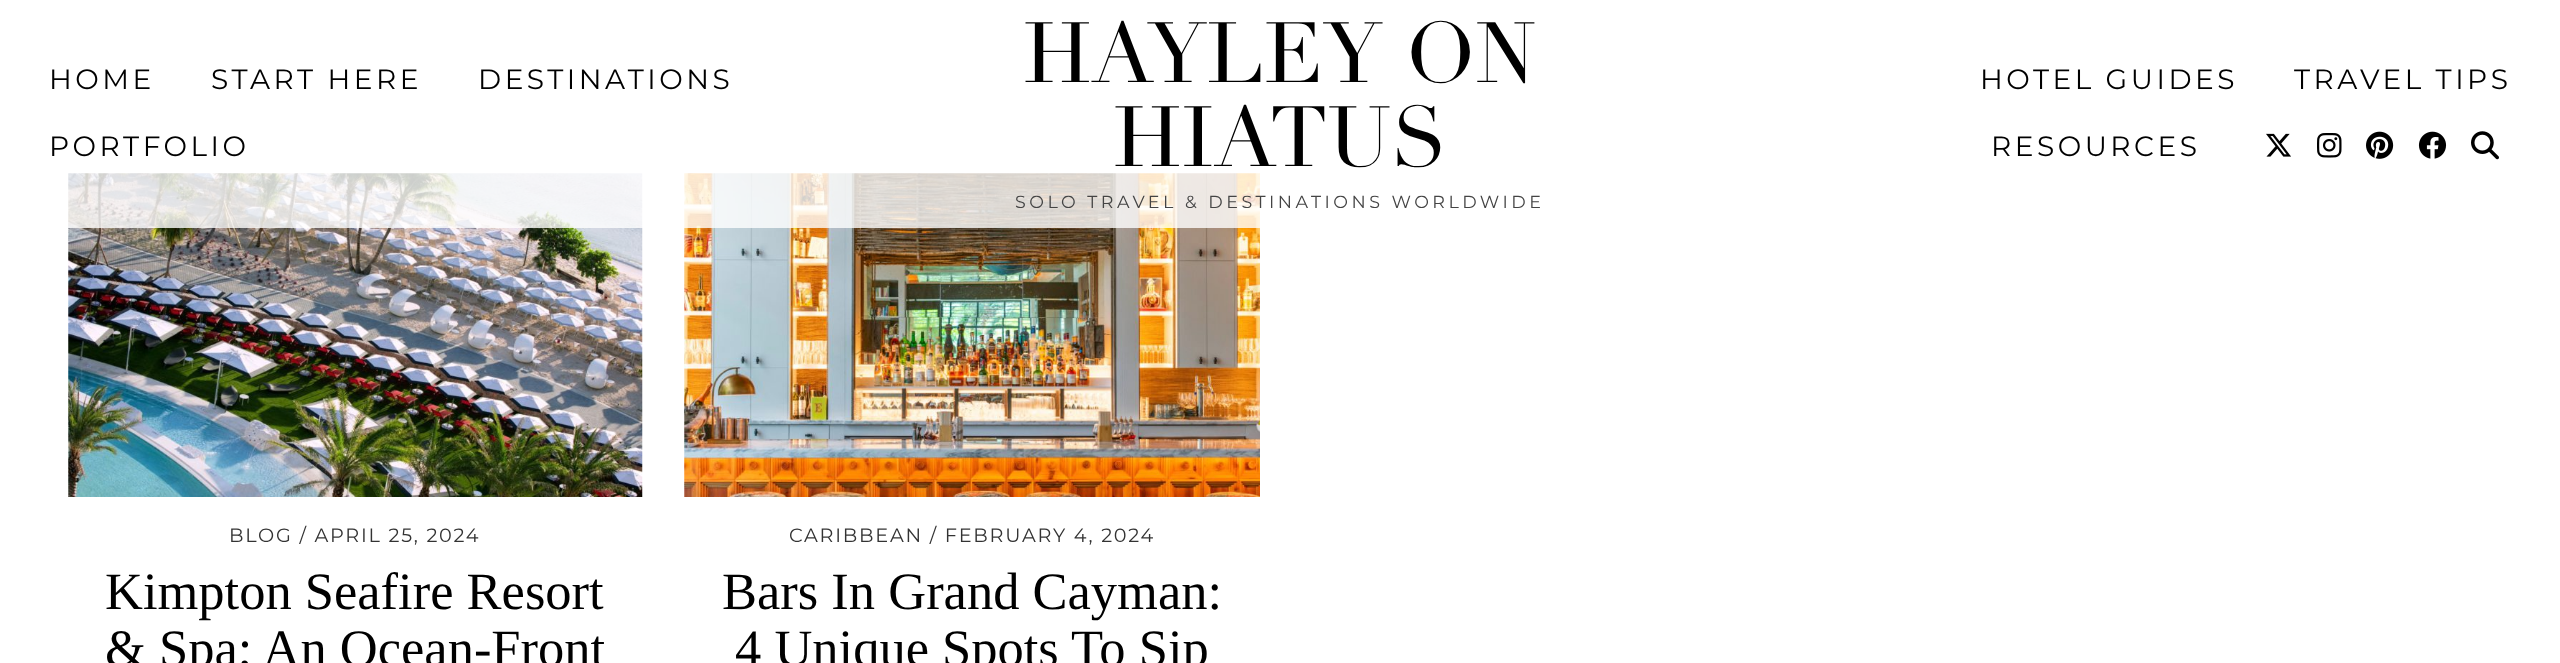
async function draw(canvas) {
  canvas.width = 2560
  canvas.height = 663
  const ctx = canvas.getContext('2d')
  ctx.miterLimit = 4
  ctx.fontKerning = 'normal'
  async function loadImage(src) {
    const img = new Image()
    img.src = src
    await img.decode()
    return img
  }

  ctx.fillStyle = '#fff'
  ctx.fillRect(0, 0, 2560, 663)
  ctx.drawImage(await loadImage('image5.png'), 68, 173, 575, 324)
  ctx.drawImage(await loadImage('image6.png'), 684, 173, 576, 324)
  ctx.fillStyle = '#ffffffcc'
  ctx.fillRect(68, 173, 1192, 55)
  ctx.letterSpacing = '3.5px'
  ctx.font = '100 28px Montserrat'
  ctx.fillStyle = '#000'
  ctx.fillText('HOME', 49, 89)
  ctx.fillText('START HERE', 211, 89)
  ctx.fillText('DESTINATIONS', 478, 89)
  ctx.fillText('PORTFOLIO', 49, 156)
  ctx.letterSpacing = '0px'
  ctx.font = '84px Didot'
  ctx.fillText('HAYLEY ON', 1023, 82)
  ctx.fillText('HIATUS', 1113, 166)
  ctx.letterSpacing = '3.5px'
  ctx.font = '100 17.5px Montserrat'
  ctx.fillStyle = '#444'
  ctx.fillText('SOLO TRAVEL & DESTINATIONS WORLDWIDE', 1015, 208)
  ctx.font = '100 28px Montserrat'
  ctx.fillStyle = '#000'
  ctx.fillText('HOTEL GUIDES', 1980, 89)
  ctx.fillText('TRAVEL TIPS', 2294, 89)
  ctx.fillText('RESOURCES', 1991, 156)
  ctx.drawImage(await loadImage('image0.png'), 2266, 133, 25, 24)
  ctx.drawImage(await loadImage('image1.png'), 2317, 133, 25, 25)
  ctx.drawImage(await loadImage('image2.png'), 2366, 131, 28, 28)
  ctx.drawImage(await loadImage('image3.png'), 2418, 131, 29, 28)
  ctx.drawImage(await loadImage('image4.png'), 2471, 131, 28, 29)
  ctx.letterSpacing = '1.75px'
  ctx.font = '100 19.25px Montserrat'
  ctx.fillStyle = '#333'
  ctx.fillText('BLOG / APRIL 25, 2024', 229, 542)
  ctx.letterSpacing = '0px'
  ctx.font = '52.5px Liberation Serif'
  ctx.fillStyle = '#000'
  ctx.fillText('Kimpton Seafire Resort', 105, 609)
  ctx.fillText('& Spa; An Ocean-Front', 105, 666)
  ctx.letterSpacing = '1.75px'
  ctx.font = '100 19.25px Montserrat'
  ctx.fillStyle = '#333'
  ctx.fillText('CARIBBEAN / FEBRUARY 4, 2024', 789, 542)
  ctx.letterSpacing = '0px'
  ctx.font = '52.5px Liberation Serif'
  ctx.fillStyle = '#000'
  ctx.fillText('Bars In Grand Cayman:', 722, 609)
  ctx.fillText('4 Unique Spots To Sip', 735, 666)
}

draw(document.querySelector('canvas'))
